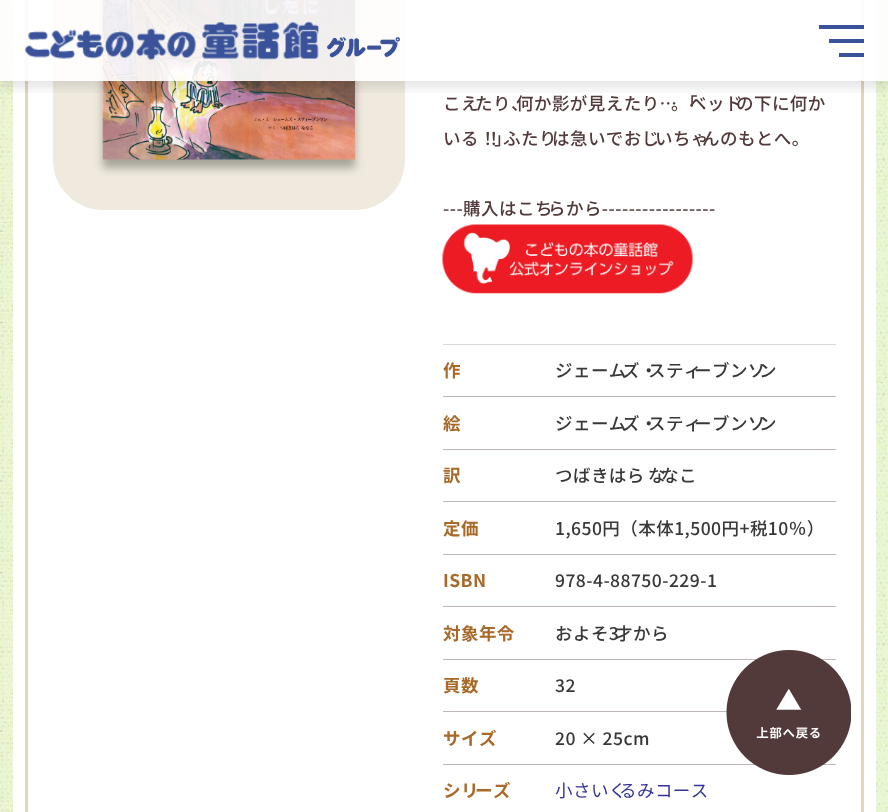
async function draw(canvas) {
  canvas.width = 888
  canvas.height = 812
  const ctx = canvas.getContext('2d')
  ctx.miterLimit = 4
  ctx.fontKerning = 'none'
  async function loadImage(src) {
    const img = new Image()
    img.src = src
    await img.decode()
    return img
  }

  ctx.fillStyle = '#fff'
  ctx.fillRect(0, 0, 888, 812)
  ctx.drawImage(await loadImage('image1.png'), 0, 0, 888, 812)
  ctx.fillRect(13, 0, 863, 812)
  ctx.strokeStyle = '#e0d6bb'
  ctx.lineWidth = 3
  ctx.strokeRect(26.5, -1.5, 836, 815)
  ctx.fillStyle = '#efeadd'
  ctx.beginPath()
  ctx.roundRect(53, -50, 352, 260, 50)
  ctx.fill()
  ctx.fillStyle = '#0000004d'
  ctx.filter = 'blur(4px)'
  ctx.beginPath()
  ctx.rect(103, -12, 252, 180)
  ctx.fill()
  ctx.filter = 'none'
  ctx.drawImage(await loadImage('image2.png'), 102, 0, 253, 160)
  ctx.save()
  ctx.beginPath()
  ctx.rect(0, 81, 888, 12)
  ctx.clip()
  ctx.fillStyle = '#0000001a'
  ctx.filter = 'blur(6px)'
  ctx.beginPath()
  ctx.rect(0, 6, 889, 82)
  ctx.fill()
  ctx.filter = 'none'
  ctx.restore()
  ctx.fillStyle = '#ffffffe6'
  ctx.fillRect(0, 0, 888, 81)
  ctx.drawImage(await loadImage('image0.png'), 25, 21, 375, 39)
  ctx.fillStyle = '#39529a'
  ctx.fillRect(819, 25, 45, 4)
  ctx.fillRect(829, 39, 35, 4)
  ctx.fillRect(839, 53, 25, 4)
  ctx.letterSpacing = '0.45px'
  ctx.font = '500 17.5px Noto Sans JP'
  ctx.fillStyle = '#523a3a'
  ctx.fillText('こえ', 443, 110)
  ctx.fillText('たり、', 475, 110)
  ctx.fillText('何か影が見えたり…', 516, 110)
  ctx.fillText('。', 671, 110)
  ctx.fillText('「', 680, 110)
  ctx.fillText('ベッド', 689, 110)
  ctx.fillText('の下に何か', 736, 110)
  ctx.fillText('いる！', 443, 145)
  ctx.fillText('！', 485, 145)
  ctx.fillText('」', 494, 145)
  ctx.fillText('ふたり', 503, 145)
  ctx.fillText('は急いでおじ', 552, 145)
  ctx.fillText('いちゃ', 655, 145)
  ctx.fillText('んのもとへ。', 702, 145)
  ctx.fillText('---購入はこち', 443, 215)
  ctx.fillText('らから-----------------', 548, 215)
  ctx.drawImage(await loadImage('image3.png'), 442, 224, 251, 70)
  ctx.fillStyle = '#dcd8d8'
  ctx.fillRect(443, 344, 393, 1)
  ctx.fillStyle = '#c0b8b8'
  ctx.fillRect(443, 396, 393, 1)
  ctx.font = 'bold 17.5px Noto Sans JP'
  ctx.fillStyle = '#a86929'
  ctx.fillText('作', 443, 377)
  ctx.font = '500 17.5px Noto Sans JP'
  ctx.fillStyle = '#383838'
  ctx.fillText('ジェーム', 555, 377)
  ctx.fillText('ズ・', 622, 377)
  ctx.fillText('スティ', 648, 377)
  ctx.fillText('ーブンソ', 694, 377)
  ctx.fillText('ン', 759, 377)
  ctx.fillStyle = '#c0b8b8'
  ctx.fillRect(443, 449, 393, 1)
  ctx.font = 'bold 17.5px Noto Sans JP'
  ctx.fillStyle = '#a86929'
  ctx.fillText('絵', 443, 430)
  ctx.font = '500 17.5px Noto Sans JP'
  ctx.fillStyle = '#383838'
  ctx.fillText('ジェーム', 555, 430)
  ctx.fillText('ズ・', 622, 430)
  ctx.fillText('スティ', 648, 430)
  ctx.fillText('ーブンソ', 694, 430)
  ctx.fillText('ン', 759, 430)
  ctx.fillStyle = '#c0b8b8'
  ctx.fillRect(443, 501, 393, 1)
  ctx.font = 'bold 17.5px Noto Sans JP'
  ctx.fillStyle = '#a86929'
  ctx.fillText('訳', 443, 482)
  ctx.font = '500 17.5px Noto Sans JP'
  ctx.fillStyle = '#383838'
  ctx.fillText('つばきはら', 555, 482)
  ctx.fillText('な', 648, 482)
  ctx.fillText('なこ', 661, 482)
  ctx.fillStyle = '#c0b8b8'
  ctx.fillRect(443, 554, 393, 1)
  ctx.font = 'bold 17.5px Noto Sans JP'
  ctx.fillStyle = '#a86929'
  ctx.fillText('定価', 443, 535)
  ctx.font = '500 17.5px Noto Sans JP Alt'
  ctx.fillStyle = '#383838'
  ctx.fillText('1,650円（本体1,500円+税10％）', 555, 535)
  ctx.fillStyle = '#c0b8b8'
  ctx.fillRect(443, 606, 393, 1)
  ctx.font = 'bold 17.5px Noto Sans JP'
  ctx.fillStyle = '#a86929'
  ctx.fillText('ISBN', 443, 587)
  ctx.font = '500 17.5px Noto Sans JP'
  ctx.fillStyle = '#383838'
  ctx.fillText('978-4-88750-229-1', 555, 587)
  ctx.fillStyle = '#c0b8b8'
  ctx.fillRect(443, 659, 393, 1)
  ctx.font = 'bold 17.5px Noto Sans JP'
  ctx.fillStyle = '#a86929'
  ctx.fillText('対象年令', 443, 640)
  ctx.font = '500 17.5px Noto Sans JP'
  ctx.fillStyle = '#383838'
  ctx.fillText('およそ3', 555, 640)
  ctx.fillText('才から', 615, 640)
  ctx.fillStyle = '#c0b8b8'
  ctx.fillRect(443, 711, 284, 1)
  ctx.font = 'bold 17.5px Noto Sans JP'
  ctx.fillStyle = '#a86929'
  ctx.fillText('頁数', 443, 692)
  ctx.font = '500 17.5px Noto Sans JP'
  ctx.fillStyle = '#383838'
  ctx.fillText('32', 555, 692)
  ctx.fillStyle = '#c0b8b8'
  ctx.fillRect(443, 764, 393, 1)
  ctx.font = 'bold 17.5px Noto Sans JP'
  ctx.fillStyle = '#a86929'
  ctx.fillText('サイズ', 443, 745)
  ctx.font = '500 17.5px Noto Sans JP'
  ctx.fillStyle = '#383838'
  ctx.fillText('20 × 25cm', 555, 745)
  ctx.font = 'bold 17.5px Noto Sans JP'
  ctx.fillStyle = '#a86929'
  ctx.fillText('シリ', 443, 797)
  ctx.fillText('ーズ', 475, 797)
  ctx.font = '17.5px Noto Sans JP'
  ctx.fillStyle = '#339'
  ctx.fillText('小さいく', 555, 797)
  ctx.fillText('るみコース', 619, 797)
  ctx.drawImage(await loadImage('image4.png'), 726, 650, 125, 125)
}

draw(document.querySelector('canvas'))
